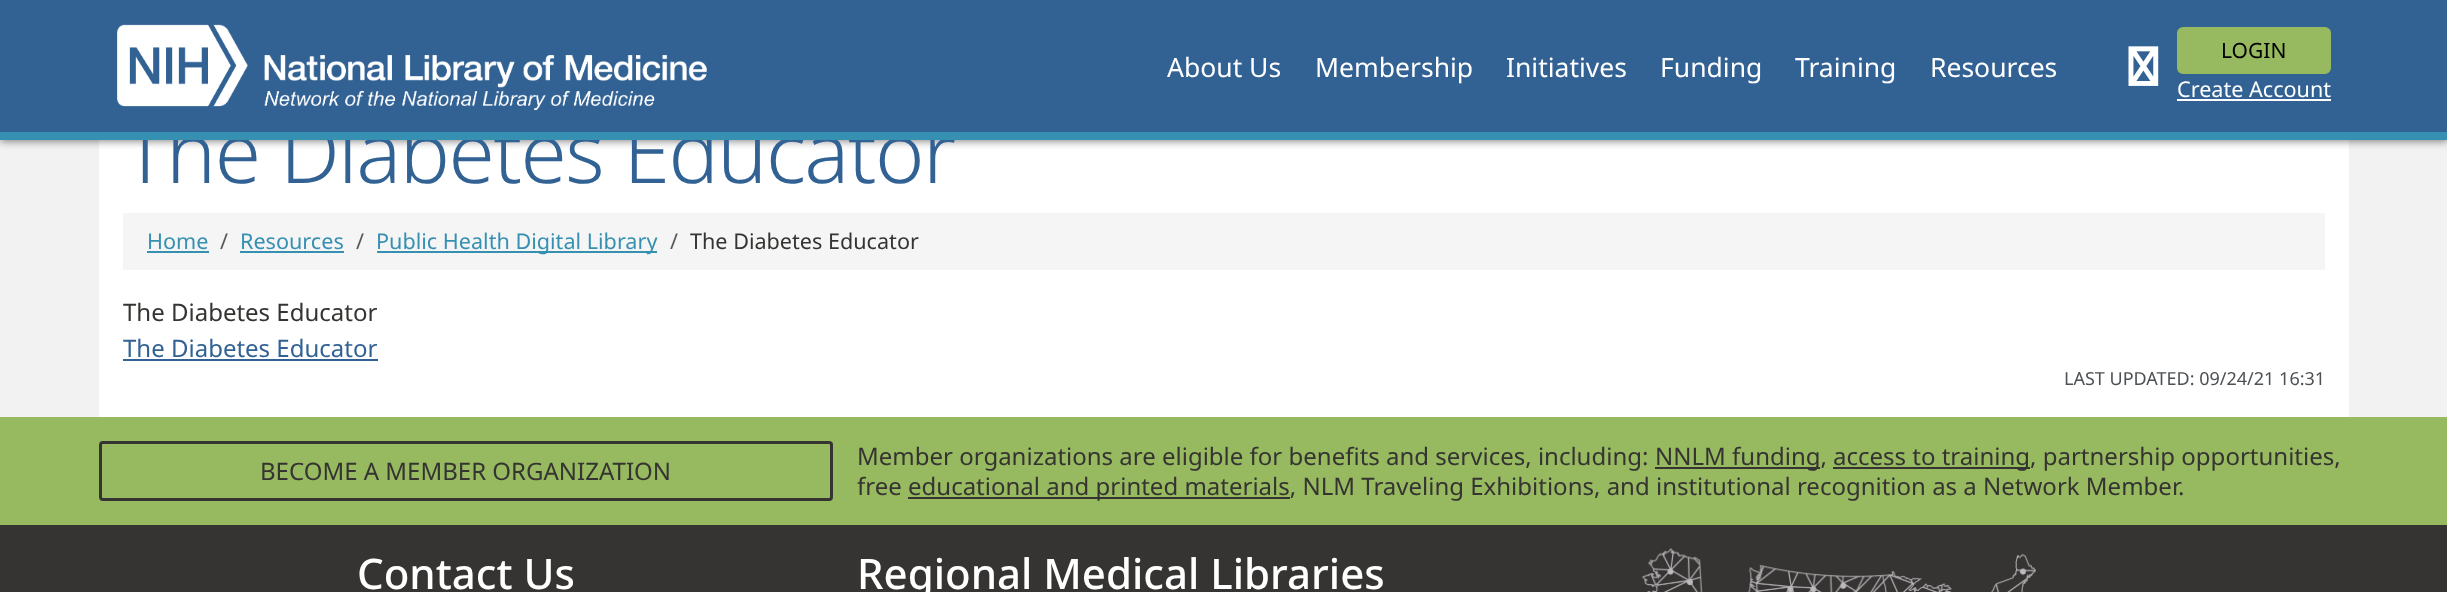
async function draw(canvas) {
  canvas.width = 2447
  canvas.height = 592
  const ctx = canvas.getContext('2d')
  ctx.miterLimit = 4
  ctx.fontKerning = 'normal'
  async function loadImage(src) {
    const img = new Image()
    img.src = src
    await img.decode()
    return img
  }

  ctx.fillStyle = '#f2f2f2'
  ctx.fillRect(0, 0, 2447, 592)
  ctx.fillStyle = '#fff'
  ctx.fillRect(99, 140, 2250, 277)
  ctx.fillStyle = '#00000080'
  ctx.filter = 'blur(4px)'
  ctx.beginPath()
  ctx.rect(0, 2, 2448, 139)
  ctx.fill()
  ctx.filter = 'none'
  ctx.fillStyle = '#326294'
  ctx.fillRect(0, 0, 2447, 132)
  ctx.letterSpacing = '-1.5px'
  ctx.font = '300 84px Noto Sans'
  ctx.fillText('The Diabetes Educator', 123, 183)
  ctx.fillStyle = '#3590b2'
  ctx.fillRect(0, 132, 2447, 8)
  ctx.drawImage(await loadImage('image0.png'), 117, 24, 590, 87)
  ctx.letterSpacing = '0px'
  ctx.font = '26.5px Noto Sans'
  ctx.fillStyle = '#fff'
  ctx.fillText('About Us', 1167, 77)
  ctx.fillText('Membership', 1315, 77)
  ctx.fillText('Initiatives', 1506, 77)
  ctx.fillText('Funding', 1660, 77)
  ctx.fillText('Training', 1795, 77)
  ctx.fillText('Resources', 1930, 77)
  ctx.drawImage(await loadImage('image1.png'), 2128, 46, 31, 40)
  ctx.fillStyle = '#97b95f'
  ctx.beginPath()
  ctx.roundRect(2178, 28, 152, 45, 5)
  ctx.fill()
  ctx.strokeStyle = '#97b95f'
  ctx.lineWidth = 2
  ctx.stroke()
  ctx.font = '21px Noto Sans'
  ctx.fillStyle = '#000'
  ctx.fillText('LOGIN', 2221, 58)
  ctx.font = '21.6px Noto Sans'
  ctx.fillStyle = '#fff'
  ctx.fillText('Create Account', 2177, 97)
  ctx.fillRect(2177, 99, 154, 2)
  ctx.fillStyle = '#f5f5f5'
  ctx.fillRect(123, 213, 2202, 57)
  ctx.fillStyle = '#3590b2'
  ctx.fillText('Home', 147, 249)
  ctx.fillRect(147, 251, 62, 2)
  ctx.fillStyle = '#56595c'
  ctx.fillText('/', 220, 249)
  ctx.fillStyle = '#3590b2'
  ctx.fillText('Resources', 240, 249)
  ctx.fillRect(240, 251, 104, 2)
  ctx.fillStyle = '#56595c'
  ctx.fillText('/', 356, 249)
  ctx.fillStyle = '#3590b2'
  ctx.fillRect(377, 251, 280, 2)
  ctx.fillText('Public Health Digital Library', 376, 249)
  ctx.fillStyle = '#56595c'
  ctx.fillText('/', 670, 249)
  ctx.fillStyle = '#353432'
  ctx.fillText('The Diabetes Educator', 690, 249)
  ctx.font = '24px Noto Sans'
  ctx.fillText('The Diabetes Educator', 123, 321)
  ctx.fillStyle = '#326294'
  ctx.fillText('The Diabetes Educator', 123, 357)
  ctx.fillRect(123, 359, 255, 2)
  ctx.font = '18px Noto Sans'
  ctx.fillStyle = '#4d5154'
  ctx.fillText('LAST UPDATED: 09/24/21 16:31', 2064, 385)
  ctx.fillStyle = '#97b95f'
  ctx.fillRect(0, 417, 2447, 108)
  ctx.beginPath()
  ctx.roundRect(100.5, 442.5, 731, 57, 2.5)
  ctx.strokeStyle = '#353432'
  ctx.lineWidth = 3
  ctx.stroke()
  ctx.font = '24px Noto Sans'
  ctx.fillStyle = '#353432'
  ctx.fillText('BECOME A MEMBER ORGANIZATION', 260, 480)
  ctx.fillText('Member organizations are eligible for benefits and services, including:', 857, 465)
  ctx.fillRect(1655, 467, 165, 2)
  ctx.fillText('NNLM funding,', 1655, 465)
  ctx.fillRect(1833, 467, 197, 2)
  ctx.fillText('access to training, partnership opportunities,', 1833, 465)
  ctx.fillText('free', 857, 495)
  ctx.fillRect(908, 497, 382, 2)
  ctx.fillText('educational and printed materials, NLM Traveling Exhibitions, and institutional recognition as a Network Member.', 908, 495)
  ctx.fillRect(0, 525, 2447, 67)
  ctx.font = '500 42px Noto Sans'
  ctx.fillStyle = '#fff'
  ctx.fillText('Contact Us', 357, 589)
  ctx.fillText('Regional Medical Libraries', 857, 589)
  ctx.drawImage(await loadImage('image2.png'), 1642, 548, 394, 44)
}

draw(document.querySelector('canvas'))
